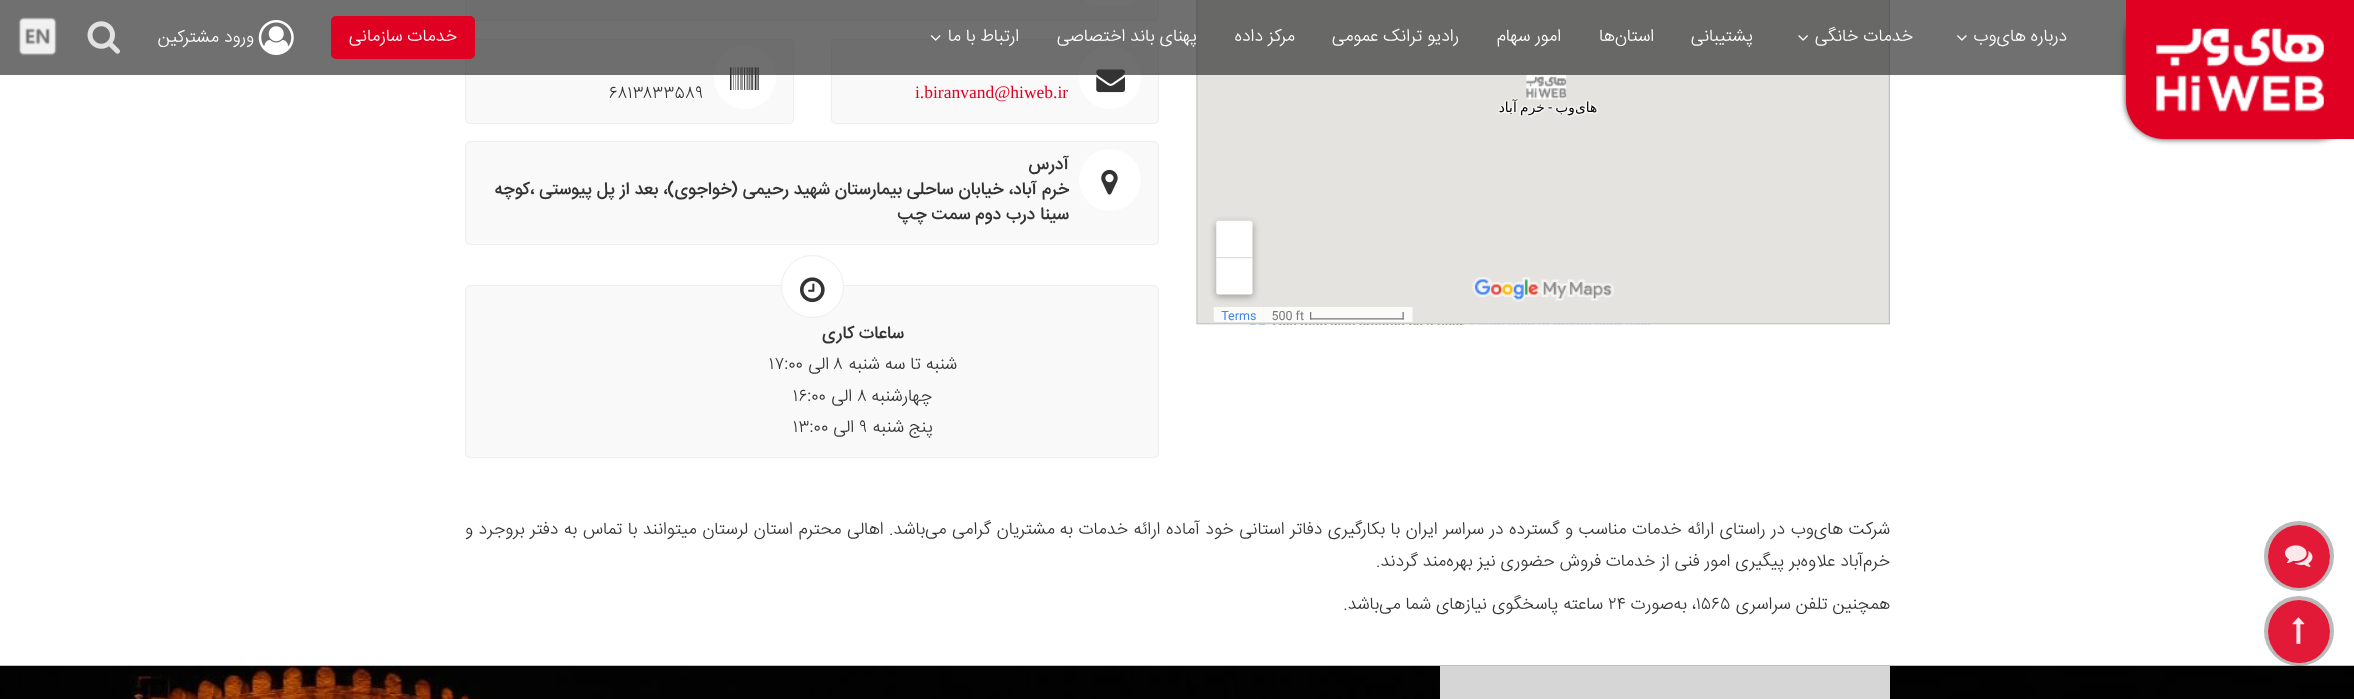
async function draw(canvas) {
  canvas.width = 2354
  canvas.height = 699
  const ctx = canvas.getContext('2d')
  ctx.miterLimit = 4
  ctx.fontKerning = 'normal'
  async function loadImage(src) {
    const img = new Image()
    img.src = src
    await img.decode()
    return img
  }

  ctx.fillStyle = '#fff'
  ctx.fillRect(0, 0, 2354, 699)
  ctx.drawImage(await loadImage('image9.png'), 1196, 0, 694, 325)
  ctx.fillStyle = '#f9f9f9'
  ctx.beginPath()
  ctx.roundRect(465.5, -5.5, 693, 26, 4.5)
  ctx.fill()
  ctx.strokeStyle = '#eee'
  ctx.stroke()
  ctx.fillStyle = '#fff'
  ctx.beginPath()
  ctx.roundRect(1079, -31, 62, 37, 31)
  ctx.fill()
  ctx.fillStyle = '#f9f9f9'
  ctx.beginPath()
  ctx.roundRect(831.5, 39.5, 327, 84, 4.5)
  ctx.fill()
  ctx.stroke()
  ctx.fillStyle = '#fff'
  ctx.beginPath()
  ctx.roundRect(1079, 46, 62, 63, 31)
  ctx.fill()
  ctx.drawImage(await loadImage('image10.png'), 1096, 69, 29, 24)
  ctx.fillStyle = '#f9f9f9'
  ctx.beginPath()
  ctx.roundRect(465.5, 39.5, 328, 84, 4.5)
  ctx.fill()
  ctx.stroke()
  ctx.fillStyle = '#fff'
  ctx.beginPath()
  ctx.roundRect(714, 46, 62, 63, 31)
  ctx.fill()
  ctx.drawImage(await loadImage('image11.png'), 730, 67, 29, 23)
  ctx.fillStyle = '#333333b3'
  ctx.fillRect(0, 0, 2126, 75)
  ctx.fillStyle = '#333'
  ctx.filter = 'blur(3px)'
  ctx.beginPath()
  ctx.roundRect(2126, 0, 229, 139, 38)
  ctx.fill()
  ctx.filter = 'none'
  ctx.fillStyle = '#df0022'
  ctx.beginPath()
  ctx.moveTo(2126, 0)
  ctx.lineTo(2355, 0)
  ctx.lineTo(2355, 139)
  ctx.lineTo(2164, 139)
  ctx.bezierCurveTo(2143, 139, 2126, 122, 2126, 101)
  ctx.closePath()
  ctx.fill()
  ctx.drawImage(await loadImage('image0.png'), 2156, 28, 168, 84)
  ctx.direction = 'rtl'
  ctx.font = '300 17.5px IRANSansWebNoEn'
  ctx.fillStyle = '#fff'
  ctx.fillText('درباره های‌وب', 2067, 41)
  ctx.drawImage(await loadImage('image1.png'), 1957, 35, 10, 6)
  ctx.fillText('خدمات خانگی', 1913, 41)
  ctx.drawImage(await loadImage('image2.png'), 1798, 35, 10, 6)
  ctx.fillText('پشتیبانی', 1753, 41)
  ctx.fillText('استان‌ها', 1654, 41)
  ctx.fillText('امور سهام', 1561, 41)
  ctx.fillText('رادیو ترانک عمومی', 1459, 41)
  ctx.fillText('مرکز داده', 1295, 41)
  ctx.fillText('پهنای باند اختصاصی', 1197, 41)
  ctx.fillText('ارتباط با ما', 1019, 41)
  ctx.drawImage(await loadImage('image3.png'), 930, 35, 11, 6)
  ctx.fillStyle = '#df0022'
  ctx.beginPath()
  ctx.roundRect(332.5, 17.5, 141, 40, 3.5)
  ctx.fill()
  ctx.strokeStyle = '#df0022'
  ctx.lineWidth = 3
  ctx.stroke()
  ctx.fillStyle = '#fff'
  ctx.fillText('خدمات سازمانی', 457, 41)
  ctx.drawImage(await loadImage('image4.png'), 258, 20, 36, 35)
  ctx.fillText('ورود', 254, 42)
  ctx.fillText('مشترکین', 219, 42)
  ctx.drawImage(await loadImage('image5.png'), 87, 21, 33, 33)
  ctx.drawImage(await loadImage('image6.png'), 18, 17, 39, 39)
  ctx.beginPath()
  ctx.arc(2299, 556, 33, 0, 2 * Math.PI)
  ctx.strokeStyle = '#bababa'
  ctx.lineWidth = 4
  ctx.stroke()
  ctx.fillStyle = '#e21a38'
  ctx.beginPath()
  ctx.roundRect(2268, 525, 62, 63, 31)
  ctx.fill()
  ctx.drawImage(await loadImage('image7.png'), 2285, 545, 28, 22)
  ctx.drawImage(await loadImage('image14.png'), 0, 665, 2354, 34)
  ctx.beginPath()
  ctx.arc(2299, 631, 33, 0, 2 * Math.PI)
  ctx.strokeStyle = '#00000045'
  ctx.stroke()
  ctx.beginPath()
  ctx.roundRect(2268, 600, 62, 63, 31)
  ctx.fill()
  ctx.drawImage(await loadImage('image8.png'), 2292, 617, 13, 27)
  ctx.direction = 'ltr'
  ctx.font = '17.5px Liberation Serif'
  ctx.fillStyle = '#df0022'
  ctx.fillText('i.biranvand@hiweb.ir', 915, 98)
  ctx.font = '300 17.5px IRANSansWebNoEn'
  ctx.fillStyle = '#333'
  ctx.fillText('۶۸۱۳۸۳۳۵۸۹', 608, 98)
  ctx.fillStyle = '#f9f9f9'
  ctx.beginPath()
  ctx.roundRect(465.5, 141.5, 693, 103, 4.5)
  ctx.fill()
  ctx.strokeStyle = '#eee'
  ctx.lineWidth = 1
  ctx.stroke()
  ctx.fillStyle = '#fff'
  ctx.beginPath()
  ctx.arc(1110, 180, 31, 0, 2 * Math.PI)
  ctx.fill()
  ctx.drawImage(await loadImage('image12.png'), 1101, 169, 17, 26)
  ctx.direction = 'rtl'
  ctx.font = '500 17.5px IRANSansWebNoEn'
  ctx.fillStyle = '#333'
  ctx.fillText('آدرس', 1069, 169)
  ctx.fillText('خرم آباد، خیابان ساحلی بیمارستان شهید رحیمی (خواجوی)، بعد از پل پیوستی ،کوچه', 1069, 194)
  ctx.fillText('سینا درب دوم سمت چپ', 1069, 219)
  ctx.fillStyle = '#f9f9f9'
  ctx.beginPath()
  ctx.roundRect(465.5, 285.5, 693, 172, 4.5)
  ctx.fill()
  ctx.stroke()
  ctx.fillStyle = '#fff'
  ctx.beginPath()
  ctx.arc(812.5, 286.5, 31, 0, 2 * Math.PI)
  ctx.fill()
  ctx.stroke()
  ctx.drawImage(await loadImage('image13.png'), 800, 277, 25, 26)
  ctx.fillStyle = '#333'
  ctx.fillText('ساعات کاری', 904, 338)
  ctx.font = '300 17.5px IRANSansWebNoEn'
  ctx.fillText('شنبه تا سه شنبه', 957, 369)
  ctx.direction = 'ltr'
  ctx.fillText('۸', 833, 369)
  ctx.direction = 'rtl'
  ctx.fillText('الی', 829, 369)
  ctx.direction = 'ltr'
  ctx.fillText('۱۷:۰۰', 769, 369)
  ctx.direction = 'rtl'
  ctx.fillText('چهارشنبه', 932, 401)
  ctx.direction = 'ltr'
  ctx.fillText('۸', 857, 401)
  ctx.direction = 'rtl'
  ctx.fillText('الی', 852, 401)
  ctx.direction = 'ltr'
  ctx.fillText('۱۶:۰۰', 793, 401)
  ctx.direction = 'rtl'
  ctx.fillText('پنج شنبه', 933, 432)
  ctx.direction = 'ltr'
  ctx.fillText('۹', 859, 432)
  ctx.direction = 'rtl'
  ctx.fillText('الی', 854, 432)
  ctx.direction = 'ltr'
  ctx.fillText('۱۳:۰۰', 793, 432)
  ctx.wordSpacing = '0.6px'
  ctx.direction = 'rtl'
  ctx.fillText('شرکت های‌وب در راستای ارائه خدمات مناسب و گسترده در سراسر ایران با بکار‌گیری دفاتر استانی خود آماده ارائه خدمات به', 1890, 534)
  ctx.fillText('مشتریان گرامی می‌باشد. اهالی محترم استان لرستان میتوانند با تماس به دفتر بروجرد و', 1055, 534)
  ctx.wordSpacing = '0px'
  ctx.fillText('خرم‌آباد علاوه‌بر پیگیری امور فنی از خدمات', 1890, 566)
  ctx.fillText('فروش حضوری نیز بهره‌مند گردند.', 1601, 566)
  ctx.fillText('همچنین تلفن سراسری', 1890, 609)
  ctx.direction = 'ltr'
  ctx.fillText('۱۵۶۵', 1696, 609)
  ctx.direction = 'rtl'
  ctx.fillText('، به‌صورت', 1696, 609)
  ctx.direction = 'ltr'
  ctx.fillText('۲۴', 1608, 609)
  ctx.direction = 'rtl'
  ctx.fillText('ساعته پاسخگوی نیازهای شما می‌باشد.', 1603, 609)
  ctx.fillStyle = '#d6d6d6'
  ctx.fillRect(1440, 666, 450, 33)
}

draw(document.querySelector('canvas'))
